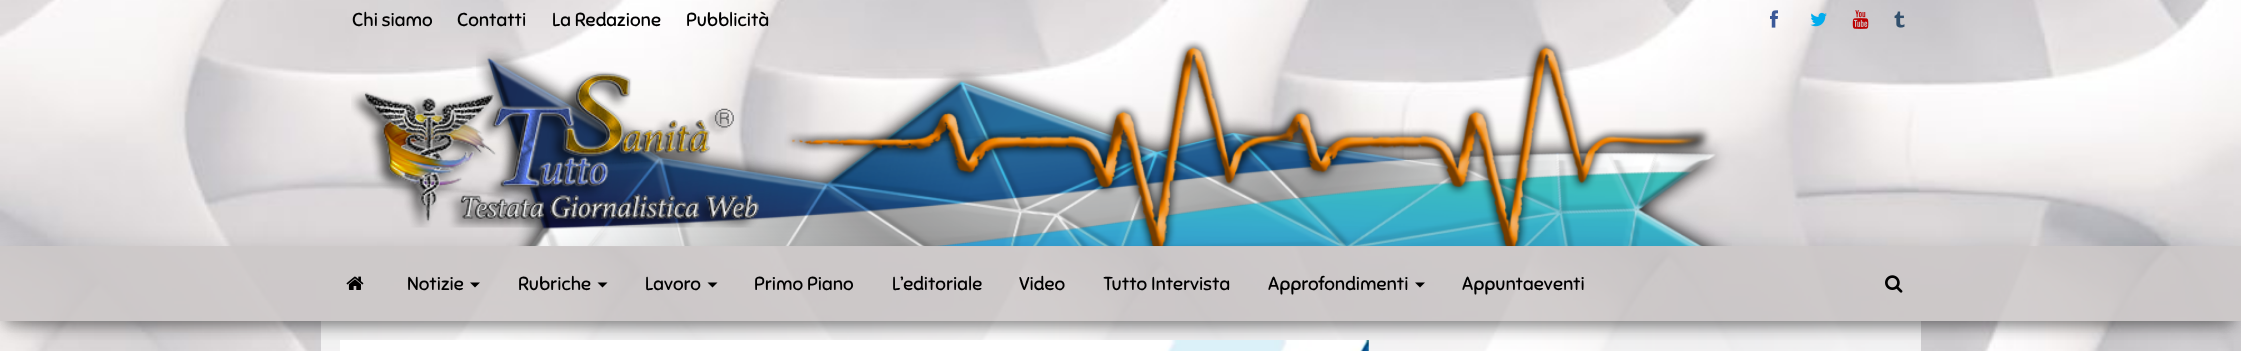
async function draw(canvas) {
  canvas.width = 2241
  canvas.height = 351
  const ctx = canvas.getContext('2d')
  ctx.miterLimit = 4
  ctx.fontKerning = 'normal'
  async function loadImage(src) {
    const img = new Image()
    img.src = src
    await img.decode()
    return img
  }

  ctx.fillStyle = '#fff'
  ctx.fillRect(0, 0, 2241, 351)
  ctx.drawImage(await loadImage('image0.png'), 0, 0, 2241, 351)
  ctx.font = '18.75px Sniglet'
  ctx.fillStyle = '#000'
  ctx.fillText('Chi siamo', 352, 26)
  ctx.fillText('Contatti', 457, 26)
  ctx.fillText('La Redazione', 552, 26)
  ctx.fillText('Pubblicità', 686, 26)
  ctx.drawImage(await loadImage('image1.png'), 1770, 10, 8, 18)
  ctx.drawImage(await loadImage('image2.png'), 1810, 12, 17, 15)
  ctx.drawImage(await loadImage('image3.png'), 1852, 10, 17, 19)
  ctx.drawImage(await loadImage('image4.png'), 1894, 11, 11, 17)
  ctx.drawImage(await loadImage('image5.png'), 476, 40, 1256, 207)
  ctx.fillStyle = '#ffffffb8'
  ctx.fillRect(321, 321, 1600, 30)
  ctx.save()
  ctx.beginPath()
  ctx.moveTo(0, 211)
  ctx.lineTo(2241, 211)
  ctx.lineTo(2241, 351)
  ctx.lineTo(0, 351)
  ctx.closePath()
  ctx.moveTo(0, 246)
  ctx.lineTo(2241, 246)
  ctx.lineTo(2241, 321)
  ctx.lineTo(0, 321)
  ctx.closePath()
  ctx.clip('evenodd')
  ctx.fillStyle = '#0000001f'
  ctx.filter = 'blur(12.5px)'
  ctx.beginPath()
  ctx.rect(0, 250, 2241, 75)
  ctx.fill()
  ctx.filter = 'none'
  ctx.restore()
  ctx.drawImage(await loadImage('image6.png'), 351, 71, 408, 157)
  ctx.save()
  ctx.beginPath()
  ctx.rect(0, 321, 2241, 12)
  ctx.clip()
  ctx.fillStyle = '#00000033'
  ctx.filter = 'blur(6px)'
  ctx.beginPath()
  ctx.rect(6, 263, 2229, 62)
  ctx.fill()
  ctx.filter = 'none'
  ctx.restore()
  ctx.save()
  ctx.beginPath()
  ctx.rect(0, 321, 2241, 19)
  ctx.clip()
  ctx.fillStyle = '#0000006b'
  ctx.filter = 'blur(12.5px)'
  ctx.beginPath()
  ctx.rect(15, 274, 2211, 45)
  ctx.fill()
  ctx.filter = 'none'
  ctx.restore()
  ctx.fillStyle = '#cbc7c7de'
  ctx.fillRect(0, 246, 2241, 75)
  ctx.drawImage(await loadImage('image7.png'), 346, 276, 18, 14)
  ctx.fillStyle = '#000'
  ctx.fillText('Notizie', 407, 290)
  ctx.beginPath()
  ctx.moveTo(470, 282.5)
  ctx.lineTo(480, 282.5)
  ctx.lineTo(475, 287.5)
  ctx.closePath()
  ctx.fill()
  ctx.fillText('Rubriche', 518, 290)
  ctx.beginPath()
  ctx.moveTo(597.5, 282.5)
  ctx.lineTo(607.5, 282.5)
  ctx.lineTo(602.5, 287.5)
  ctx.closePath()
  ctx.fill()
  ctx.fillText('Lavoro', 645, 290)
  ctx.beginPath()
  ctx.moveTo(707.5, 282.5)
  ctx.lineTo(717.5, 282.5)
  ctx.lineTo(712.5, 287.5)
  ctx.closePath()
  ctx.fill()
  ctx.fillText('Primo Piano', 754, 290)
  ctx.fillText('L’editoriale', 892, 290)
  ctx.fillText('Video', 1019, 290)
  ctx.fillText('Tutto Intervista', 1103, 290)
  ctx.fillText('Approfondimenti', 1268, 290)
  ctx.beginPath()
  ctx.moveTo(1415, 282.5)
  ctx.lineTo(1425, 282.5)
  ctx.lineTo(1420, 287.5)
  ctx.closePath()
  ctx.fill()
  ctx.fillText('Appuntaeventi', 1462, 290)
  ctx.drawImage(await loadImage('image8.png'), 1885, 275, 18, 18)
  ctx.drawImage(await loadImage('image9.png'), 340, 340, 1029, 11)
}

draw(document.querySelector('canvas'))
